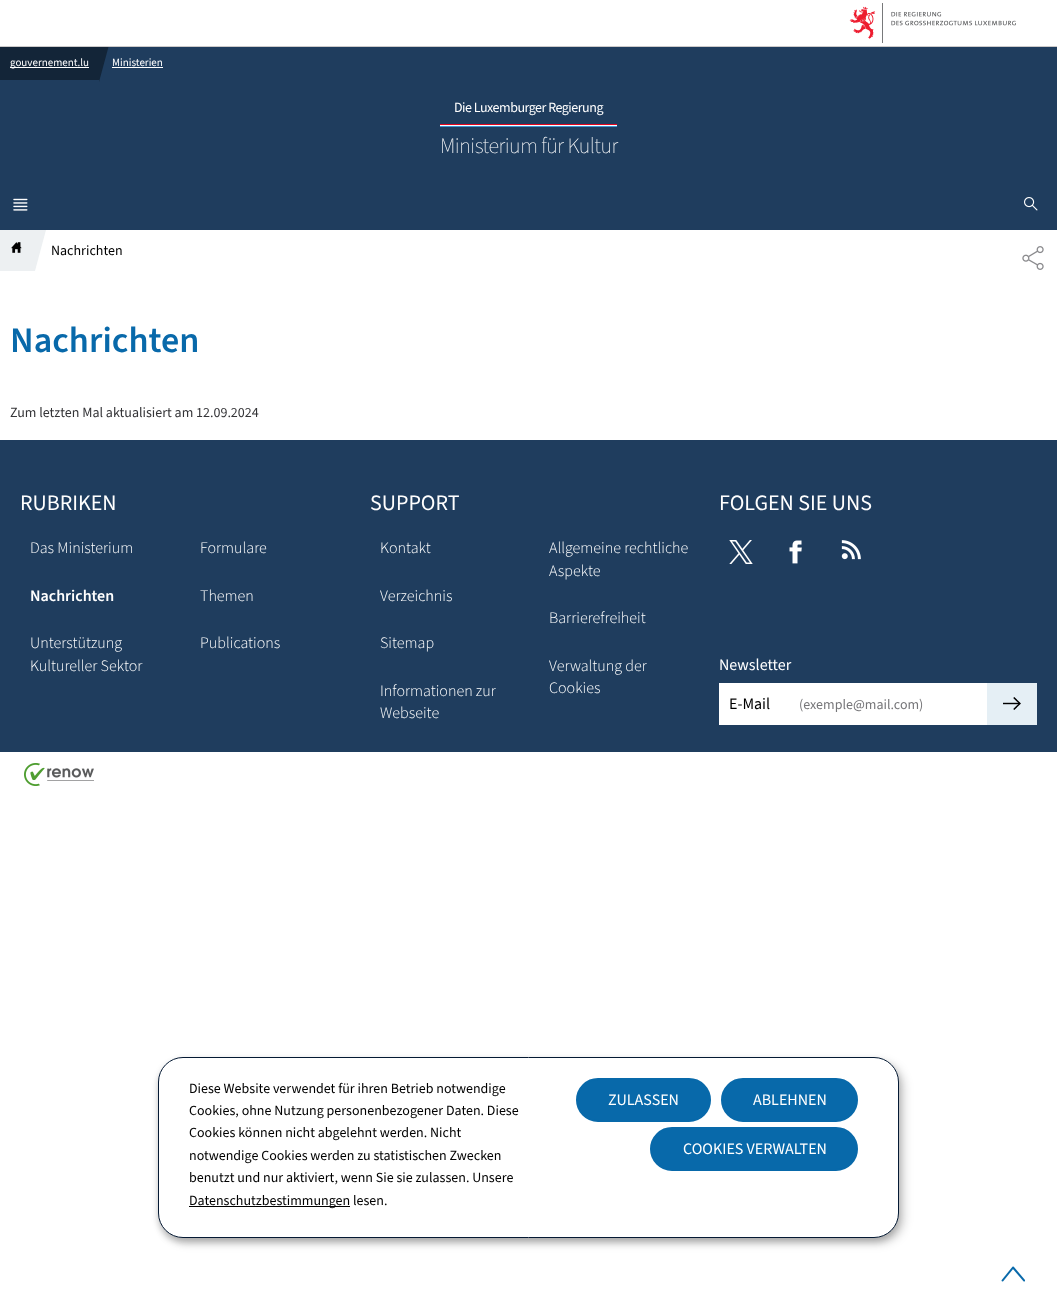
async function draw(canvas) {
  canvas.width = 1057
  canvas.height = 1298
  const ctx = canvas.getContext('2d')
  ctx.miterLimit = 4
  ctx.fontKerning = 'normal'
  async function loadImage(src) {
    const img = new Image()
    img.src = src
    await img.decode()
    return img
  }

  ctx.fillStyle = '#fff'
  ctx.fillRect(0, 0, 1057, 1298)
  ctx.fillStyle = '#cccaca'
  ctx.fillRect(0, 46, 1057, 1)
  ctx.drawImage(await loadImage('image0.png'), 849, 3, 167, 40)
  ctx.fillStyle = '#1f3d5e'
  ctx.fillRect(0, 47, 1057, 183)
  ctx.fillStyle = '#132538'
  ctx.fillRect(0, 47, 99, 33)
  ctx.fillStyle = '#fff'
  ctx.fillRect(10, 67, 79, 1)
  ctx.font = '11px "Source Sans 3"'
  ctx.fillText('gouvernement.lu', 10, 66)
  ctx.save()
  ctx.beginPath()
  ctx.rect(0, 47, 1057, 748)
  ctx.clip()
  ctx.fillStyle = '#132538'
  ctx.beginPath()
  ctx.moveTo(99, 45)
  ctx.lineTo(109, 45)
  ctx.lineTo(99, 82)
  ctx.closePath()
  ctx.fill()
  ctx.restore()
  ctx.fillText('Ministerien', 112, 66)
  ctx.fillRect(112, 67, 51, 1)
  ctx.letterSpacing = '-0.5px'
  ctx.font = '14px "Source Sans 3"'
  ctx.fillText('Die Luxemburger Regierung', 454, 112)
  ctx.fillRect(440, 125, 177, 1)
  ctx.fillStyle = '#e40520'
  ctx.fillRect(440, 124, 177, 1)
  ctx.fillStyle = '#3c95d2'
  ctx.fillRect(440, 126, 177, 1)
  ctx.font = '200 22px "Source Sans 3"'
  ctx.fillStyle = '#fff'
  ctx.fillText('Ministerium für Kultur', 440, 153)
  ctx.drawImage(await loadImage('image1.png'), 13, 198, 15, 13)
  ctx.drawImage(await loadImage('image2.png'), 1024, 197, 14, 14)
  ctx.fillStyle = '#edf0f2'
  ctx.beginPath()
  ctx.moveTo(-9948, 230)
  ctx.lineTo(52, 230)
  ctx.lineTo(42, 271)
  ctx.lineTo(-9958, 271)
  ctx.closePath()
  ctx.fill()
  ctx.drawImage(await loadImage('image3.png'), 11, 242, 11, 11)
  ctx.fillStyle = '#fff'
  ctx.beginPath()
  ctx.moveTo(46, 230)
  ctx.lineTo(780, 230)
  ctx.lineTo(769, 271)
  ctx.lineTo(35, 271)
  ctx.closePath()
  ctx.fill()
  ctx.letterSpacing = '0px'
  ctx.font = '14px "Source Sans 3"'
  ctx.fillStyle = '#000'
  ctx.fillText('Nachrichten', 51, 255)
  ctx.drawImage(await loadImage('image4.png'), 1022, 246, 22, 24)
  ctx.font = '600 36px "Source Sans 3"'
  ctx.fillStyle = '#0869aa'
  ctx.fillText('Nachrichten', 10, 352)
  ctx.font = '14px "Source Sans 3"'
  ctx.fillStyle = '#343437'
  ctx.fillText('Zum letzten Mal aktualisiert am 12.09.2024', 10, 417)
  ctx.fillStyle = '#1f3d5e'
  ctx.fillRect(0, 440, 1057, 312)
  ctx.font = '22px "Source Sans 3"'
  ctx.fillStyle = '#fff'
  ctx.fillText('RUBRIKEN', 20, 510)
  ctx.font = '300 16px "Source Sans 3"'
  ctx.fillText('Das Ministerium', 30, 553)
  ctx.fillText('Formulare', 200, 553)
  ctx.font = '600 16px "Source Sans 3"'
  ctx.fillText('Nachrichten', 30, 601)
  ctx.font = '300 16px "Source Sans 3"'
  ctx.fillText('Themen', 200, 601)
  ctx.fillText('Unterstützung', 30, 648)
  ctx.fillText('Kultureller Sektor', 30, 671)
  ctx.fillText('Publications', 200, 648)
  ctx.font = '22px "Source Sans 3"'
  ctx.fillText('SUPPORT', 370, 510)
  ctx.font = '300 16px "Source Sans 3"'
  ctx.fillText('Kontakt', 380, 553)
  ctx.fillText('Allgemeine rechtliche', 549, 553)
  ctx.fillText('Aspekte', 549, 576)
  ctx.fillText('Verzeichnis', 380, 601)
  ctx.fillText('Barrierefreiheit', 549, 623)
  ctx.fillText('Sitemap', 380, 648)
  ctx.fillText('Verwaltung der', 549, 671)
  ctx.fillText('Cookies', 549, 693)
  ctx.fillText('Informationen zur', 380, 696)
  ctx.fillText('Webseite', 380, 718)
  ctx.font = '22px "Source Sans 3"'
  ctx.fillText('FOLGEN SIE UNS', 719, 510)
  ctx.drawImage(await loadImage('image5.png'), 729, 540, 24, 24)
  ctx.drawImage(await loadImage('image6.png'), 789, 540, 13, 24)
  ctx.drawImage(await loadImage('image7.png'), 841, 540, 20, 20)
  ctx.font = '16px "Source Sans 3"'
  ctx.fillText('Newsletter', 719, 670)
  ctx.fillRect(719, 683, 268, 42)
  ctx.fillStyle = '#000'
  ctx.fillText('E-Mail', 729, 709)
  ctx.font = '14px "Source Sans 3"'
  ctx.fillStyle = '#767679'
  ctx.fillText('(exemple@mail.com)', 799, 709)
  ctx.fillStyle = '#e5eff5'
  ctx.fillRect(987, 683, 50, 42)
  ctx.drawImage(await loadImage('image8.png'), 1003, 697, 18, 13)
  ctx.drawImage(await loadImage('image9.png'), 24, 763, 70, 23)
  ctx.drawImage(await loadImage('image10.png'), 1001, 1266, 24, 16)
  ctx.fillStyle = '#00000030'
  ctx.filter = 'blur(5px)'
  ctx.beginPath()
  ctx.roundRect(163, 1062, 741, 181, 25)
  ctx.fill()
  ctx.filter = 'none'
  ctx.fillStyle = '#00000033'
  ctx.filter = 'blur(3px)'
  ctx.beginPath()
  ctx.roundRect(158, 1061, 741, 181, 25)
  ctx.fill()
  ctx.filter = 'none'
  ctx.fillStyle = '#fff'
  ctx.beginPath()
  ctx.roundRect(158.5, 1057.5, 740, 180, 24.5)
  ctx.fill()
  ctx.strokeStyle = '#051a34'
  ctx.stroke()
  ctx.fillStyle = '#000'
  ctx.fillText('Diese Website verwendet für ihren Betrieb notwendige', 189, 1093)
  ctx.fillText('Cookies, ohne Nutzung personenbezogener Daten. Diese', 189, 1115)
  ctx.fillText('Cookies können nicht abgelehnt werden. Nicht', 189, 1137)
  ctx.fillText('notwendige Cookies werden zu statistischen Zwecken', 189, 1160)
  ctx.fillText('benutzt und nur aktiviert, wenn Sie sie zulassen. Unsere', 189, 1182)
  ctx.fillRect(189, 1206, 161, 1)
  ctx.fillText('Datenschutzbestimmungen lesen.', 189, 1205)
  ctx.fillStyle = '#0869aa'
  ctx.beginPath()
  ctx.roundRect(577, 1079, 133, 42, 21)
  ctx.fill()
  ctx.strokeStyle = '#0869aa'
  ctx.lineWidth = 2
  ctx.stroke()
  ctx.font = '16px "Source Sans 3"'
  ctx.fillStyle = '#fff'
  ctx.fillText('ZULASSEN', 608, 1105)
  ctx.fillStyle = '#0869aa'
  ctx.beginPath()
  ctx.roundRect(722, 1079, 135, 42, 21)
  ctx.fill()
  ctx.stroke()
  ctx.fillStyle = '#fff'
  ctx.fillText('ABLEHNEN', 753, 1105)
  ctx.fillStyle = '#0869aa'
  ctx.beginPath()
  ctx.roundRect(651, 1128, 206, 42, 21)
  ctx.fill()
  ctx.stroke()
  ctx.fillStyle = '#fff'
  ctx.fillText('COOKIES VERWALTEN', 683, 1154)
}

draw(document.querySelector('canvas'))
